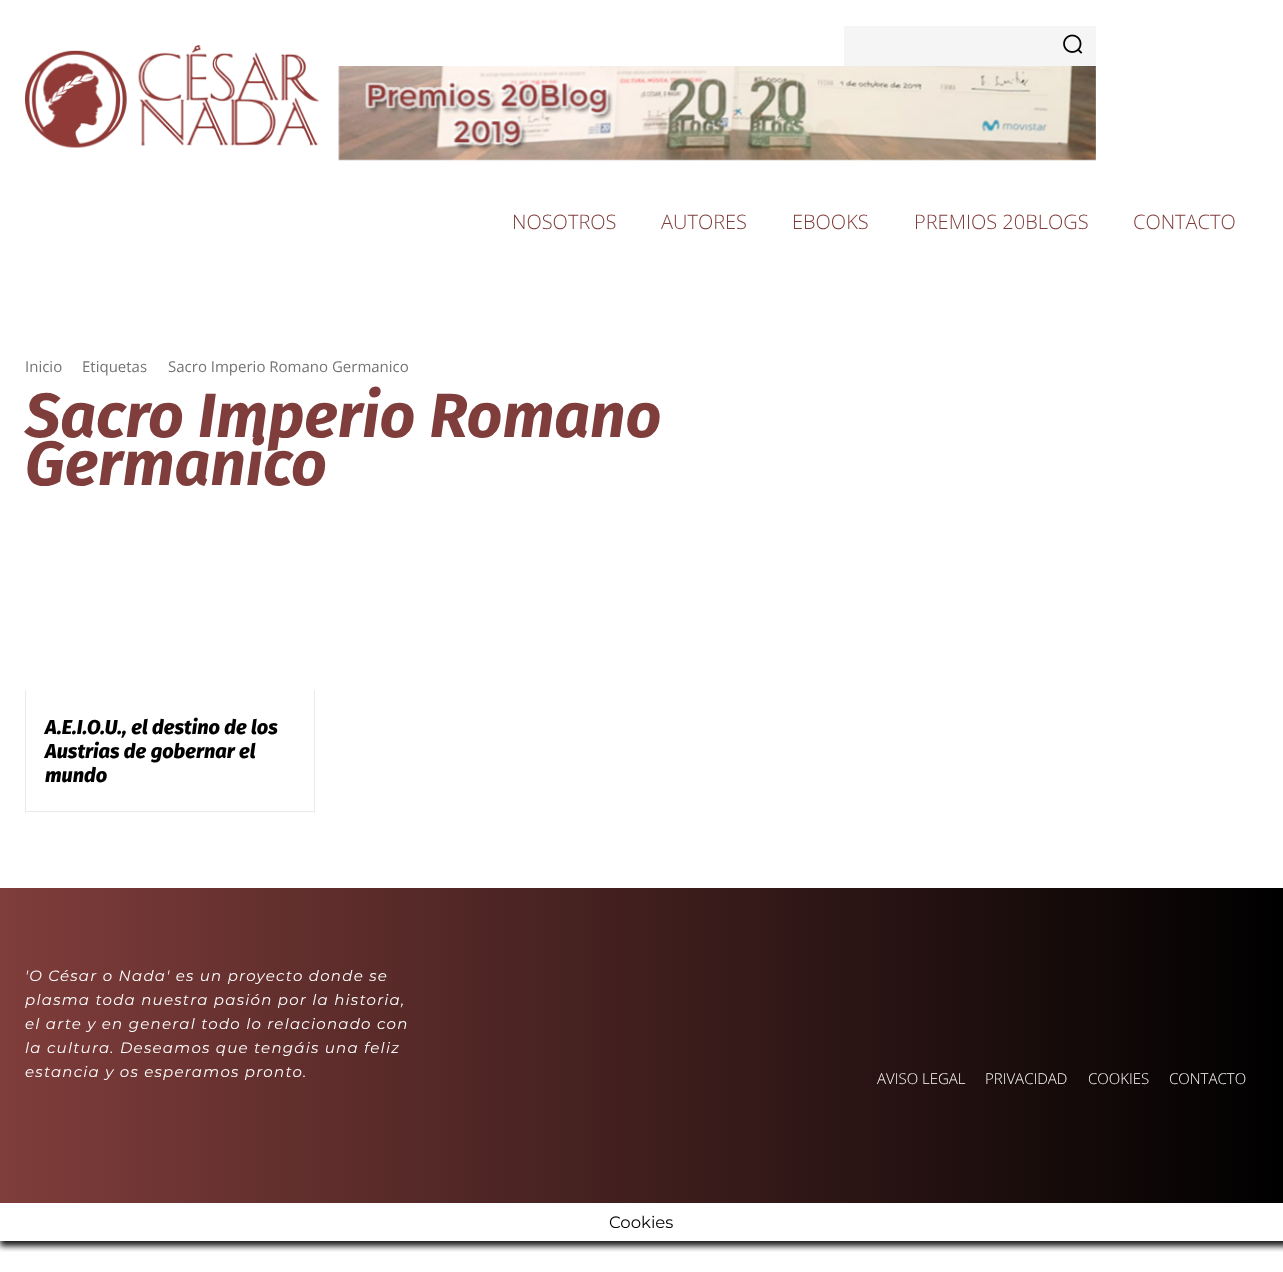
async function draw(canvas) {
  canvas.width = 1283
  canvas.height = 1272
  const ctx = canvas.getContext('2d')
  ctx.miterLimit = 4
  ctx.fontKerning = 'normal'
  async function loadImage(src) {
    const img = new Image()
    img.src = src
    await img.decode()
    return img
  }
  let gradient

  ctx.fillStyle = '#fff'
  ctx.fillRect(0, 0, 1283, 1272)
  ctx.drawImage(await loadImage('image0.png'), 25, 45, 294, 103)
  ctx.fillStyle = '#f5f5f5'
  ctx.fillRect(844, 26, 252, 40)
  ctx.drawImage(await loadImage('image1.png'), 1063, 34, 20, 20)
  ctx.drawImage(await loadImage('image2.png'), 338, 66, 758, 95)
  ctx.font = '300 20px Open Sans'
  ctx.fillStyle = '#7f3d3b'
  ctx.fillText('NOSOTROS', 512, 229)
  ctx.fillText('AUTORES', 661, 229)
  ctx.fillText('EBOOKS', 792, 229)
  ctx.fillText('PREMIOS 20BLOGS', 914, 229)
  ctx.fillText('CONTACTO', 1133, 229)
  ctx.font = '15px Open Sans'
  ctx.fillStyle = '#747474'
  ctx.fillText('Inicio', 25, 372)
  ctx.fillText('Etiquetas', 82, 372)
  ctx.fillText('Sacro Imperio Romano Germanico', 168, 372)
  ctx.font = 'italic bold 62.5px Fira Sans'
  ctx.fillStyle = '#7f3d3b'
  ctx.fillText('Sacro Imperio Romano', 25, 437)
  ctx.fillText('Germanico', 25, 485)
  ctx.fillStyle = '#eaeaea'
  ctx.fillRect(314, 690, 1, 123)
  ctx.fillRect(25, 811, 290, 1)
  ctx.fillRect(25, 690, 1, 123)
  ctx.font = 'italic 800 20px Fira Sans'
  ctx.fillStyle = '#000'
  ctx.fillText('A.E.I.O.U., el destino de los', 45, 734)
  ctx.fillText('Austrias de gobernar el', 45, 758)
  ctx.fillText('mundo', 45, 782)
  ctx.save()
  ctx.beginPath()
  ctx.rect(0, 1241, 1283, 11)
  ctx.clip()
  ctx.fillStyle = '#161616'
  ctx.filter = 'blur(3px)'
  ctx.beginPath()
  ctx.rect(0, 1203, 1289, 43)
  ctx.fill()
  ctx.filter = 'none'
  ctx.restore()
  gradient = ctx.createLinearGradient(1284, 1045, 0, 1045)
  gradient.addColorStop(0, '#000')
  gradient.addColorStop(1, '#7f3d3b')
  ctx.fillStyle = gradient
  ctx.fillRect(0, 888, 1283, 315)
  ctx.letterSpacing = '1.25px'
  ctx.font = 'italic 15px Montserrat'
  ctx.fillStyle = '#fff'
  ctx.fillText('\'O César o Nada\' es un proyecto donde se', 25, 981)
  ctx.fillText('plasma toda nuestra pasión por la historia,', 25, 1005)
  ctx.fillText('el arte y en general todo lo relacionado con', 25, 1029)
  ctx.fillText('la cultura. Deseamos que tengáis una feliz', 25, 1053)
  ctx.fillText('estancia y os esperamos pronto.', 25, 1077)
  ctx.letterSpacing = '0px'
  ctx.font = '300 15px Open Sans'
  ctx.fillText('AVISO LEGAL', 877, 1084)
  ctx.fillText('PRIVACIDAD', 985, 1084)
  ctx.fillText('COOKIES', 1088, 1084)
  ctx.fillText('CONTACTO', 1169, 1084)
  ctx.font = '16.5px Montserrat'
  ctx.fillStyle = '#000'
  ctx.fillText('Cookies', 609, 1228)
}

draw(document.querySelector('canvas'))
